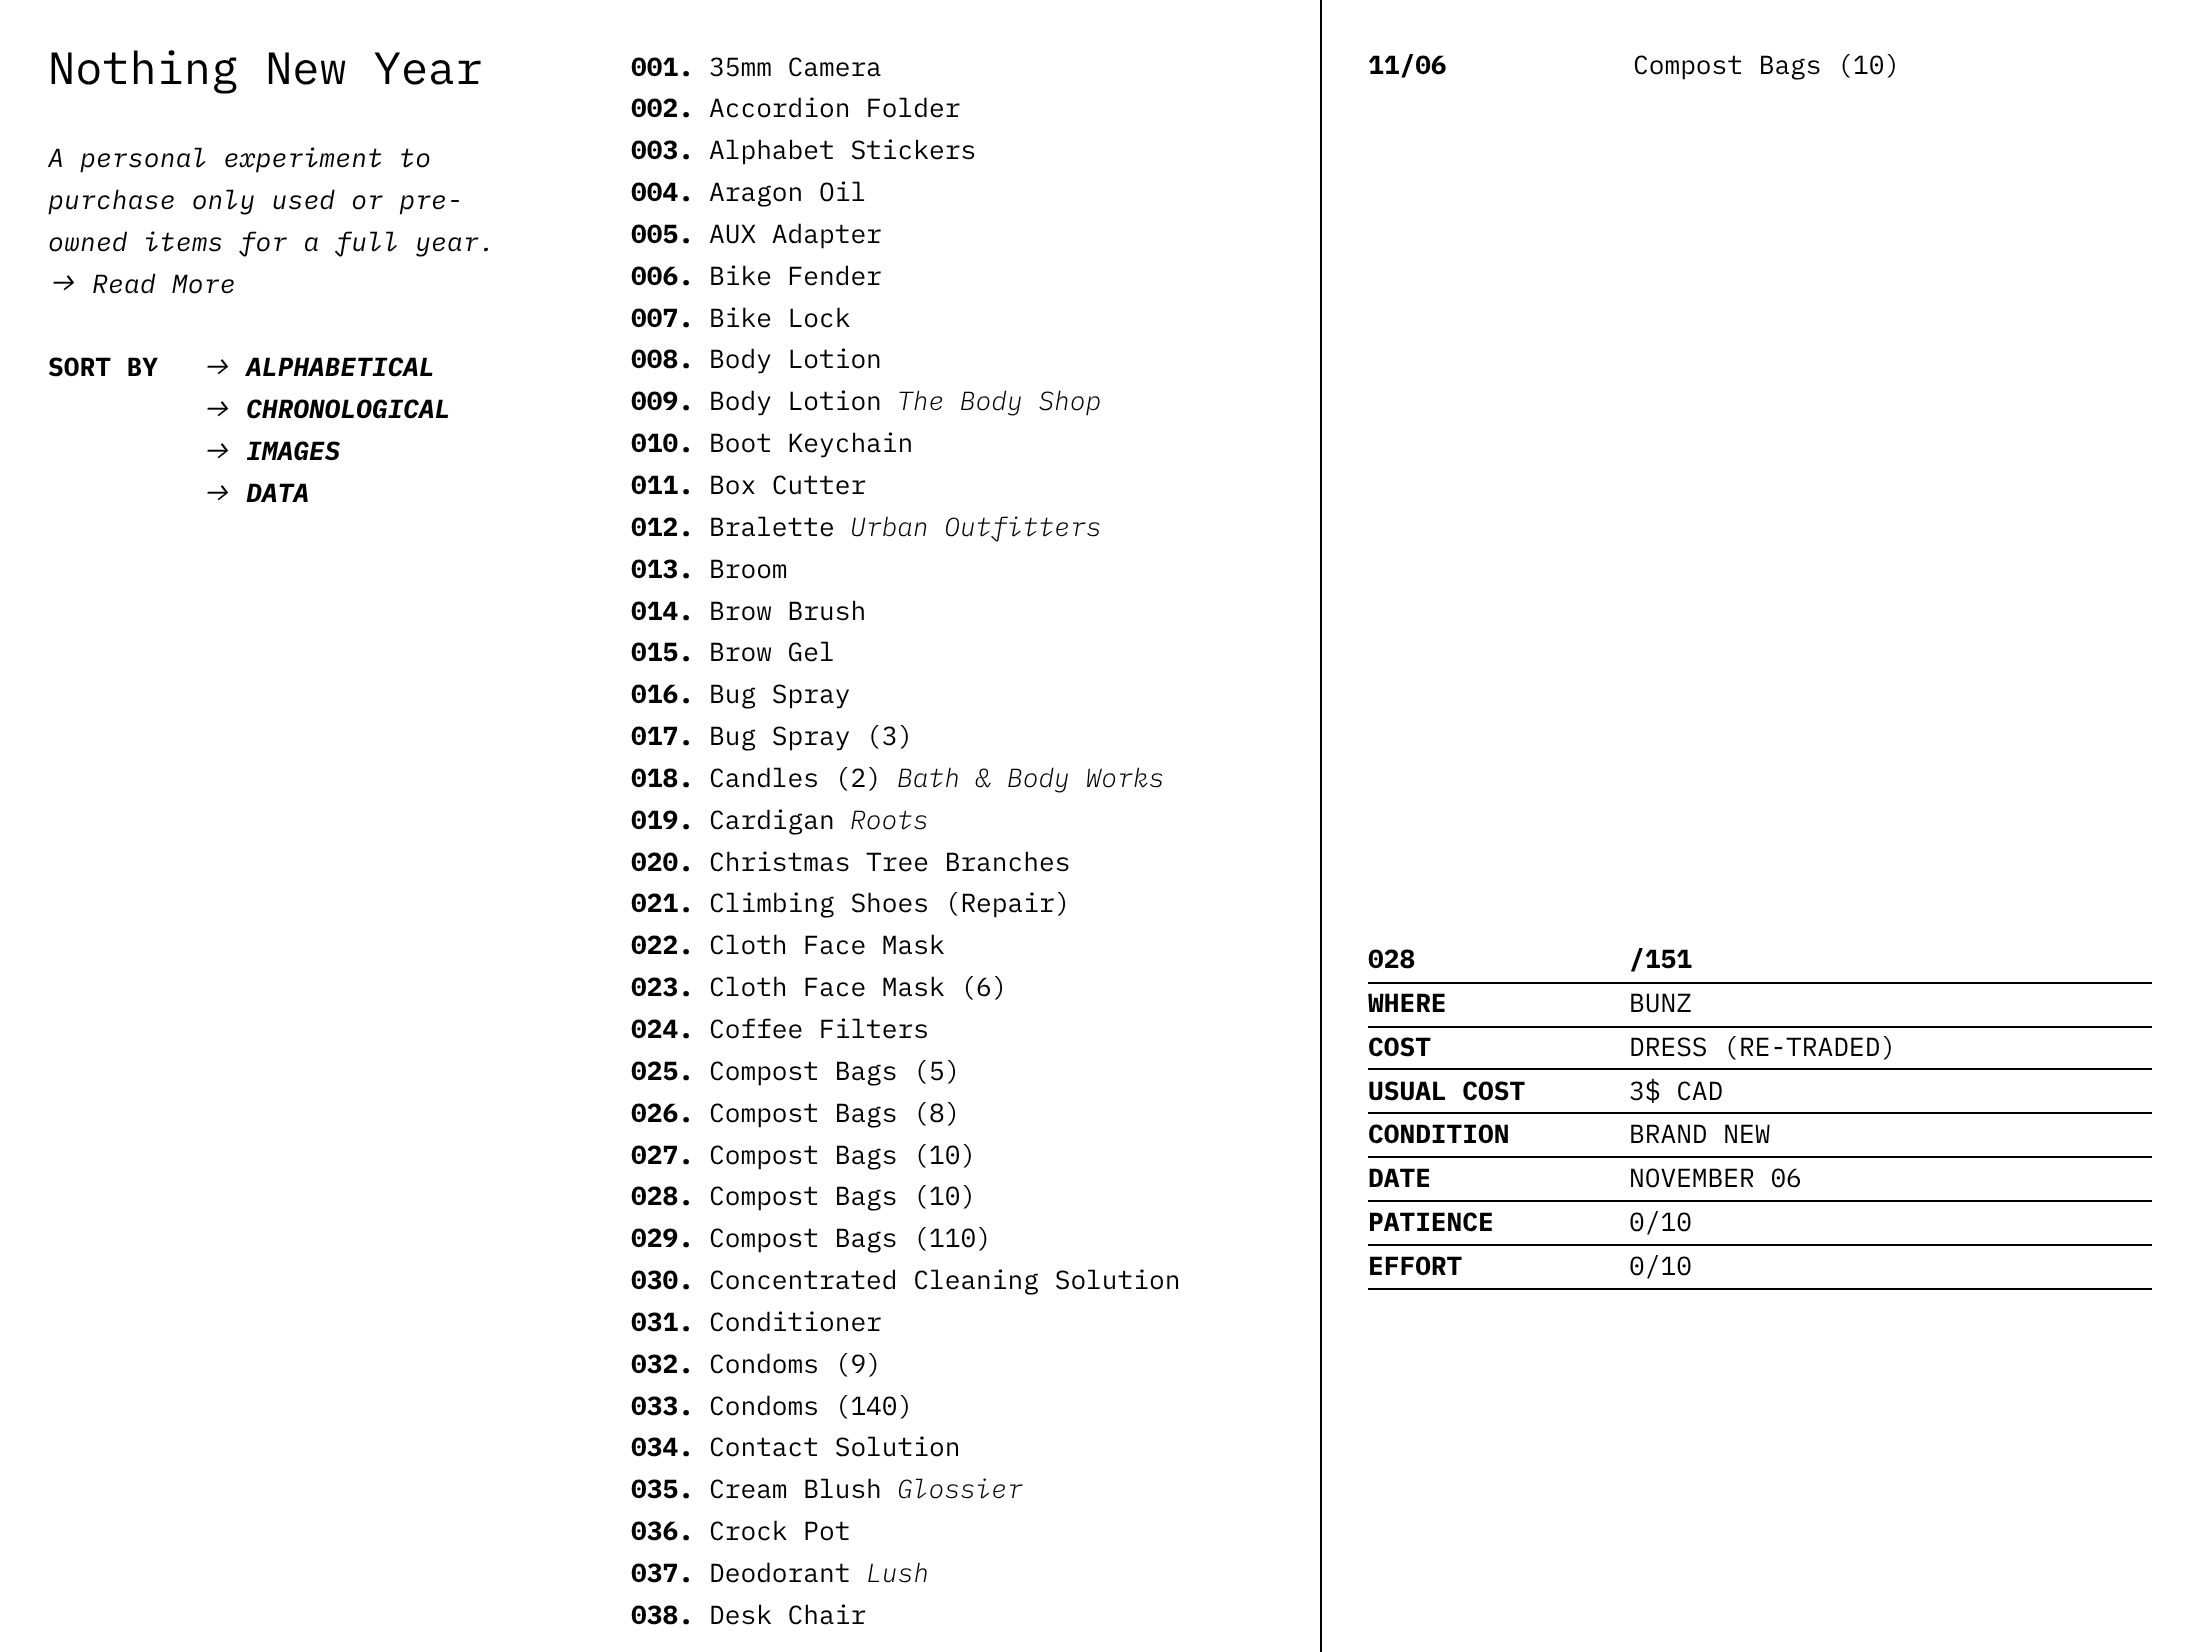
async function draw(canvas) {
  canvas.width = 2200
  canvas.height = 1652
  const ctx = canvas.getContext('2d')
  ctx.miterLimit = 4
  ctx.fontKerning = 'normal'
  async function loadImage(src) {
    const img = new Image()
    img.src = src
    await img.decode()
    return img
  }

  ctx.fillStyle = '#fff'
  ctx.fillRect(0, 0, 2200, 1652)
  ctx.font = '45.25px IBM Plex Mono'
  ctx.fillStyle = '#000'
  ctx.fillText('Nothing New Year', 48, 84)
  ctx.letterSpacing = '0.25px'
  ctx.font = 'italic 26.2px IBM Plex Mono'
  ctx.fillText('A personal experiment to', 48, 167)
  ctx.fillText('purchase only used or pre-', 48, 209)
  ctx.fillText('owned items for a full year.', 48, 251)
  ctx.drawImage(await loadImage('image0.png'), 53, 275, 22, 16)
  ctx.fillText('Read More', 92, 293)
  ctx.letterSpacing = '0px'
  ctx.font = 'bold 26.2px IBM Plex Mono'
  ctx.fillText('SORT BY', 48, 376)
  ctx.drawImage(await loadImage('image0.png'), 207, 359, 22, 16)
  ctx.font = 'italic bold 26.2px IBM Plex Mono'
  ctx.fillText('ALPHABETICAL', 246, 376)
  ctx.drawImage(await loadImage('image0.png'), 207, 401, 22, 16)
  ctx.fillText('CHRONOLOGICAL', 246, 418)
  ctx.drawImage(await loadImage('image0.png'), 207, 443, 22, 16)
  ctx.fillText('IMAGES', 246, 460)
  ctx.drawImage(await loadImage('image0.png'), 207, 485, 22, 16)
  ctx.fillText('DATA', 246, 502)
  ctx.font = 'bold 26.2px IBM Plex Mono'
  ctx.fillText('001.', 631, 76)
  ctx.font = '26.2px IBM Plex Mono'
  ctx.fillText('35mm Camera', 709, 76)
  ctx.font = 'bold 26.2px IBM Plex Mono'
  ctx.fillText('002.', 631, 117)
  ctx.font = '26.2px IBM Plex Mono'
  ctx.fillText('Accordion Folder', 709, 117)
  ctx.font = 'bold 26.2px IBM Plex Mono'
  ctx.fillText('003.', 631, 159)
  ctx.font = '26.2px IBM Plex Mono'
  ctx.fillText('Alphabet Stickers', 709, 159)
  ctx.font = 'bold 26.2px IBM Plex Mono'
  ctx.fillText('004.', 631, 201)
  ctx.font = '26.2px IBM Plex Mono'
  ctx.fillText('Aragon Oil', 709, 201)
  ctx.font = 'bold 26.2px IBM Plex Mono'
  ctx.fillText('005.', 631, 243)
  ctx.font = '26.2px IBM Plex Mono'
  ctx.fillText('AUX Adapter', 709, 243)
  ctx.font = 'bold 26.2px IBM Plex Mono'
  ctx.fillText('006.', 631, 285)
  ctx.font = '26.2px IBM Plex Mono'
  ctx.fillText('Bike Fender', 709, 285)
  ctx.font = 'bold 26.2px IBM Plex Mono'
  ctx.fillText('007.', 631, 327)
  ctx.font = '26.2px IBM Plex Mono'
  ctx.fillText('Bike Lock', 709, 327)
  ctx.font = 'bold 26.2px IBM Plex Mono'
  ctx.fillText('008.', 631, 368)
  ctx.font = '26.2px IBM Plex Mono'
  ctx.fillText('Body Lotion', 709, 368)
  ctx.font = 'bold 26.2px IBM Plex Mono'
  ctx.fillText('009.', 631, 410)
  ctx.font = '26.2px IBM Plex Mono'
  ctx.fillText('Body Lotion', 709, 410)
  ctx.font = 'italic 300 26.2px IBM Plex Mono'
  ctx.fillText('The Body Shop', 897, 410)
  ctx.font = 'bold 26.2px IBM Plex Mono'
  ctx.fillText('010.', 631, 452)
  ctx.font = '26.2px IBM Plex Mono'
  ctx.fillText('Boot Keychain', 709, 452)
  ctx.font = 'bold 26.2px IBM Plex Mono'
  ctx.fillText('011.', 631, 494)
  ctx.font = '26.2px IBM Plex Mono'
  ctx.fillText('Box Cutter', 709, 494)
  ctx.font = 'bold 26.2px IBM Plex Mono'
  ctx.fillText('012.', 631, 536)
  ctx.font = '26.2px IBM Plex Mono'
  ctx.fillText('Bralette', 709, 536)
  ctx.font = 'italic 300 26.2px IBM Plex Mono'
  ctx.fillText('Urban Outfitters', 850, 536)
  ctx.font = 'bold 26.2px IBM Plex Mono'
  ctx.fillText('013.', 631, 578)
  ctx.font = '26.2px IBM Plex Mono'
  ctx.fillText('Broom', 709, 578)
  ctx.font = 'bold 26.2px IBM Plex Mono'
  ctx.fillText('014.', 631, 620)
  ctx.font = '26.2px IBM Plex Mono'
  ctx.fillText('Brow Brush', 709, 620)
  ctx.font = 'bold 26.2px IBM Plex Mono'
  ctx.fillText('015.', 631, 661)
  ctx.font = '26.2px IBM Plex Mono'
  ctx.fillText('Brow Gel', 709, 661)
  ctx.font = 'bold 26.2px IBM Plex Mono'
  ctx.fillText('016.', 631, 703)
  ctx.font = '26.2px IBM Plex Mono'
  ctx.fillText('Bug Spray', 709, 703)
  ctx.font = 'bold 26.2px IBM Plex Mono'
  ctx.fillText('017.', 631, 745)
  ctx.font = '26.2px IBM Plex Mono'
  ctx.fillText('Bug Spray (3)', 709, 745)
  ctx.font = 'bold 26.2px IBM Plex Mono'
  ctx.fillText('018.', 631, 787)
  ctx.font = '26.2px IBM Plex Mono'
  ctx.fillText('Candles (2)', 709, 787)
  ctx.font = 'italic 300 26.2px IBM Plex Mono'
  ctx.fillText('Bath & Body Works', 897, 787)
  ctx.font = 'bold 26.2px IBM Plex Mono'
  ctx.fillText('019.', 631, 829)
  ctx.font = '26.2px IBM Plex Mono'
  ctx.fillText('Cardigan', 709, 829)
  ctx.font = 'italic 300 26.2px IBM Plex Mono'
  ctx.fillText('Roots', 850, 829)
  ctx.font = 'bold 26.2px IBM Plex Mono'
  ctx.fillText('020.', 631, 871)
  ctx.font = '26.2px IBM Plex Mono'
  ctx.fillText('Christmas Tree Branches', 709, 871)
  ctx.font = 'bold 26.2px IBM Plex Mono'
  ctx.fillText('021.', 631, 912)
  ctx.font = '26.2px IBM Plex Mono'
  ctx.fillText('Climbing Shoes (Repair)', 709, 912)
  ctx.font = 'bold 26.2px IBM Plex Mono'
  ctx.fillText('022.', 631, 954)
  ctx.font = '26.2px IBM Plex Mono'
  ctx.fillText('Cloth Face Mask', 709, 954)
  ctx.font = 'bold 26.2px IBM Plex Mono'
  ctx.fillText('023.', 631, 996)
  ctx.font = '26.2px IBM Plex Mono'
  ctx.fillText('Cloth Face Mask (6)', 709, 996)
  ctx.font = 'bold 26.2px IBM Plex Mono'
  ctx.fillText('024.', 631, 1038)
  ctx.font = '26.2px IBM Plex Mono'
  ctx.fillText('Coffee Filters', 709, 1038)
  ctx.font = 'bold 26.2px IBM Plex Mono'
  ctx.fillText('025.', 631, 1080)
  ctx.font = '26.2px IBM Plex Mono'
  ctx.fillText('Compost Bags (5)', 709, 1080)
  ctx.font = 'bold 26.2px IBM Plex Mono'
  ctx.fillText('026.', 631, 1122)
  ctx.font = '26.2px IBM Plex Mono'
  ctx.fillText('Compost Bags (8)', 709, 1122)
  ctx.font = 'bold 26.2px IBM Plex Mono'
  ctx.fillText('027.', 631, 1164)
  ctx.font = '26.2px IBM Plex Mono'
  ctx.fillText('Compost Bags (10)', 709, 1164)
  ctx.font = 'bold 26.2px IBM Plex Mono'
  ctx.fillText('028.', 631, 1205)
  ctx.font = '26.2px IBM Plex Mono'
  ctx.fillText('Compost Bags (10)', 709, 1205)
  ctx.font = 'bold 26.2px IBM Plex Mono'
  ctx.fillText('029.', 631, 1247)
  ctx.font = '26.2px IBM Plex Mono'
  ctx.fillText('Compost Bags (110)', 709, 1247)
  ctx.font = 'bold 26.2px IBM Plex Mono'
  ctx.fillText('030.', 631, 1289)
  ctx.font = '26.2px IBM Plex Mono'
  ctx.fillText('Concentrated Cleaning Solution', 709, 1289)
  ctx.font = 'bold 26.2px IBM Plex Mono'
  ctx.fillText('031.', 631, 1331)
  ctx.font = '26.2px IBM Plex Mono'
  ctx.fillText('Conditioner', 709, 1331)
  ctx.font = 'bold 26.2px IBM Plex Mono'
  ctx.fillText('032.', 631, 1373)
  ctx.font = '26.2px IBM Plex Mono'
  ctx.fillText('Condoms (9)', 709, 1373)
  ctx.font = 'bold 26.2px IBM Plex Mono'
  ctx.fillText('033.', 631, 1415)
  ctx.font = '26.2px IBM Plex Mono'
  ctx.fillText('Condoms (140)', 709, 1415)
  ctx.font = 'bold 26.2px IBM Plex Mono'
  ctx.fillText('034.', 631, 1456)
  ctx.font = '26.2px IBM Plex Mono'
  ctx.fillText('Contact Solution', 709, 1456)
  ctx.font = 'bold 26.2px IBM Plex Mono'
  ctx.fillText('035.', 631, 1498)
  ctx.font = '26.2px IBM Plex Mono'
  ctx.fillText('Cream Blush', 709, 1498)
  ctx.font = 'italic 300 26.2px IBM Plex Mono'
  ctx.fillText('Glossier', 897, 1498)
  ctx.font = 'bold 26.2px IBM Plex Mono'
  ctx.fillText('036.', 631, 1540)
  ctx.font = '26.2px IBM Plex Mono'
  ctx.fillText('Crock Pot', 709, 1540)
  ctx.font = 'bold 26.2px IBM Plex Mono'
  ctx.fillText('037.', 631, 1582)
  ctx.font = '26.2px IBM Plex Mono'
  ctx.fillText('Deodorant', 709, 1582)
  ctx.font = 'italic 300 26.2px IBM Plex Mono'
  ctx.fillText('Lush', 866, 1582)
  ctx.font = 'bold 26.2px IBM Plex Mono'
  ctx.fillText('038.', 631, 1624)
  ctx.font = '26.2px IBM Plex Mono'
  ctx.fillText('Desk Chair', 709, 1624)
  ctx.fillRect(1320, 0, 2, 1652)
  ctx.font = 'bold 26.2px IBM Plex Mono'
  ctx.fillText('11/06', 1368, 74)
  ctx.font = '26.2px IBM Plex Mono'
  ctx.fillText('Compost Bags (10)', 1633, 74)
  ctx.font = 'bold 26.2px IBM Plex Mono'
  ctx.fillText('028', 1368, 968)
  ctx.fillText('/151', 1629, 968)
  ctx.fillRect(1368, 982, 784, 2)
  ctx.fillText('WHERE', 1368, 1012)
  ctx.font = '26.2px IBM Plex Mono'
  ctx.fillText('BUNZ', 1629, 1012)
  ctx.fillRect(1368, 1026, 784, 2)
  ctx.font = 'bold 26.2px IBM Plex Mono'
  ctx.fillText('COST', 1368, 1056)
  ctx.font = '26.2px IBM Plex Mono'
  ctx.fillText('DRESS (RE-TRADED)', 1629, 1056)
  ctx.fillRect(1368, 1068, 784, 2)
  ctx.font = 'bold 26.2px IBM Plex Mono'
  ctx.fillText('USUAL COST', 1368, 1100)
  ctx.font = '26.2px IBM Plex Mono'
  ctx.fillText('3$ CAD', 1629, 1100)
  ctx.fillRect(1368, 1112, 784, 2)
  ctx.font = 'bold 26.2px IBM Plex Mono'
  ctx.fillText('CONDITION', 1368, 1143)
  ctx.font = '26.2px IBM Plex Mono'
  ctx.fillText('BRAND NEW', 1629, 1143)
  ctx.fillRect(1368, 1156, 784, 2)
  ctx.font = 'bold 26.2px IBM Plex Mono'
  ctx.fillText('DATE', 1368, 1187)
  ctx.font = '26.2px IBM Plex Mono'
  ctx.fillText('NOVEMBER 06', 1629, 1187)
  ctx.fillRect(1368, 1200, 784, 2)
  ctx.font = 'bold 26.2px IBM Plex Mono'
  ctx.fillText('PATIENCE', 1368, 1231)
  ctx.font = '26.2px IBM Plex Mono'
  ctx.fillText('0/10', 1629, 1231)
  ctx.fillRect(1368, 1244, 784, 2)
  ctx.font = 'bold 26.2px IBM Plex Mono'
  ctx.fillText('EFFORT', 1368, 1275)
  ctx.font = '26.2px IBM Plex Mono'
  ctx.fillText('0/10', 1629, 1275)
  ctx.fillRect(1368, 1288, 784, 2)
}

draw(document.querySelector('canvas'))
